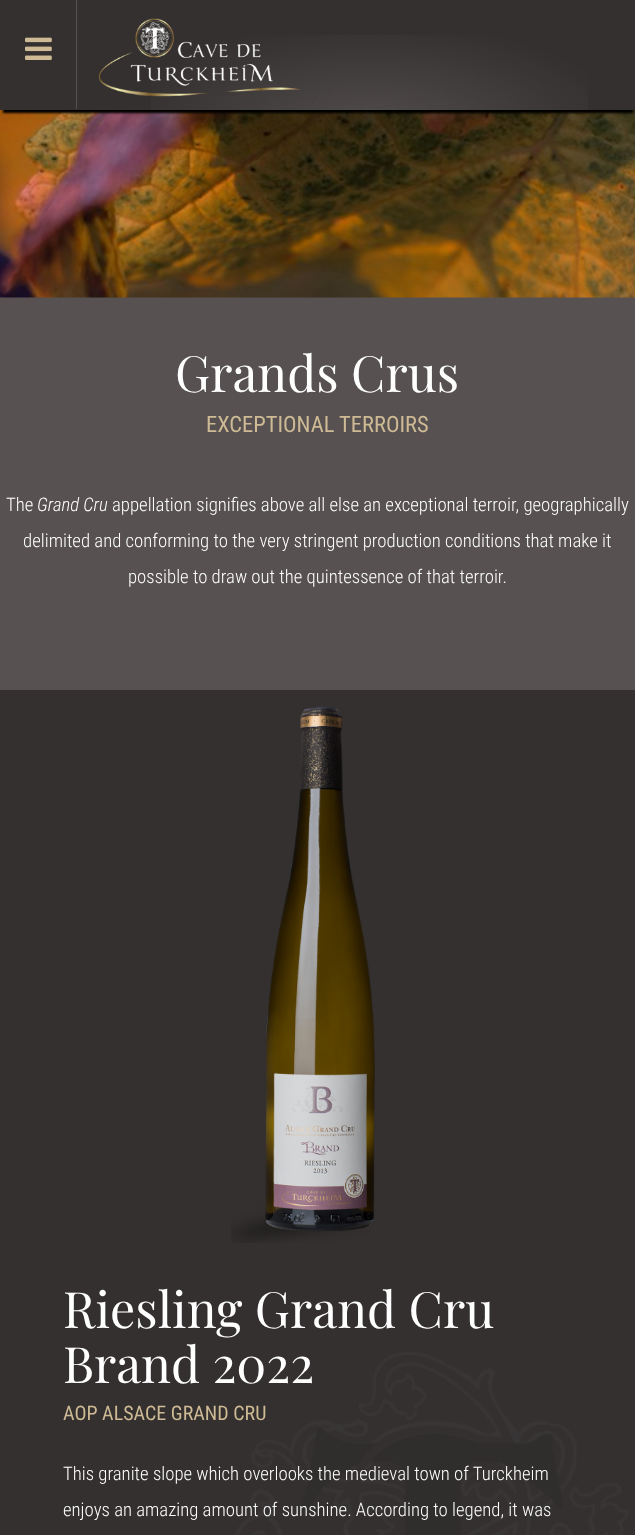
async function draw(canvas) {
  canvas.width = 635
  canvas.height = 1535
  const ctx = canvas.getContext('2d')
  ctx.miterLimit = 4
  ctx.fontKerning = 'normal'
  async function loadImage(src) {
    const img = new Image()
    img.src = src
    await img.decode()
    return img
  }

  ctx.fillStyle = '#33302f'
  ctx.fillRect(0, 0, 635, 1535)
  ctx.drawImage(await loadImage('image0.png'), 151, 35, 437, 75)
  ctx.fillStyle = '#575251'
  ctx.fillRect(0, 297, 635, 393)
  ctx.drawImage(await loadImage('image3.png'), 0, 110, 635, 188)
  ctx.save()
  ctx.beginPath()
  ctx.rect(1, 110, 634, 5)
  ctx.clip()
  ctx.fillStyle = '#000'
  ctx.filter = 'blur(1px)'
  ctx.beginPath()
  ctx.rect(3, 8, 630, 105)
  ctx.fill()
  ctx.filter = 'none'
  ctx.restore()
  ctx.fillRect(76, 0, 1, 109)
  ctx.drawImage(await loadImage('image1.png'), 25, 37, 27, 23)
  ctx.drawImage(await loadImage('image2.png'), 98, 18, 203, 79)
  ctx.font = '50px Playfair Display'
  ctx.fillStyle = '#fff'
  ctx.fillText('Grands Crus', 175, 392)
  ctx.font = '22.5px Roboto Condensed'
  ctx.fillStyle = '#ceba94'
  ctx.fillText('EXCEPTIONAL TERROIRS', 206, 432)
  ctx.font = '300 18.75px Roboto Condensed'
  ctx.fillStyle = '#fff'
  ctx.fillText('The', 6, 511)
  ctx.font = 'italic 300 18.75px Roboto Condensed'
  ctx.fillText('Grand Cru', 37, 511)
  ctx.font = '300 18.75px Roboto Condensed'
  ctx.fillText('appellation signifies above all else an exceptional terroir, geographically', 112, 511)
  ctx.fillText('delimited and conforming to the very stringent production conditions that make it', 23, 547)
  ctx.fillText('possible to draw out the quintessence of that terroir.', 128, 583)
  ctx.drawImage(await loadImage('image4.png'), 235, 1352, 394, 183)
  ctx.drawImage(await loadImage('image5.png'), 231, 707, 144, 536)
  ctx.drawImage(await loadImage('image6.png'), 265, 707, 110, 524)
  ctx.font = '50px Playfair Display'
  ctx.fillText('Riesling Grand Cru', 63, 1328)
  ctx.fillText('Brand 2022', 63, 1383)
  ctx.font = '20px Roboto Condensed'
  ctx.fillStyle = '#ceba94'
  ctx.fillText('AOP ALSACE GRAND CRU', 63, 1420)
  ctx.font = '300 18.75px Roboto Condensed'
  ctx.fillStyle = '#fff'
  ctx.fillText('This granite slope which overlooks the medieval town of Turckheim', 63, 1480)
  ctx.fillText('enjoys an amazing amount of sunshine. According to legend, it was', 63, 1516)
}

draw(document.querySelector('canvas'))
